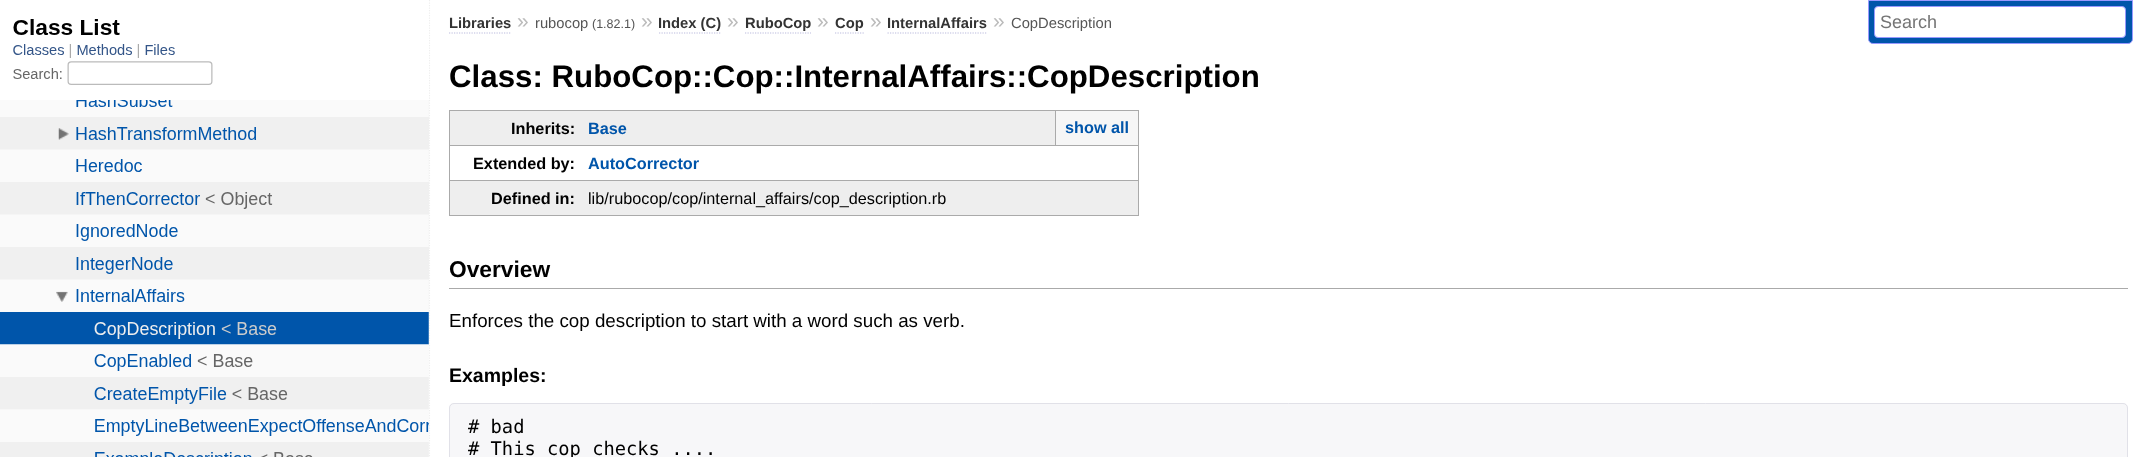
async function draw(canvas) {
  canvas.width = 2147
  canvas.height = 457
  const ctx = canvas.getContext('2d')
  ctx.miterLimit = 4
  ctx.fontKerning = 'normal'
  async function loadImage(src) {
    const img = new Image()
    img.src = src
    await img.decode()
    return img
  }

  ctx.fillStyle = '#fff'
  ctx.fillRect(0, 0, 2147, 457)
  ctx.beginPath()
  ctx.moveTo(429.5, 0)
  ctx.lineTo(429.5, 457.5)
  ctx.strokeStyle = '#eee'
  ctx.lineWidth = 1.2
  ctx.setLineDash([1.25, 1.25])
  ctx.stroke()
  ctx.drawImage(await loadImage('image0.png'), 0, 19, 429, 438)
  ctx.font = 'bold 14.75px Liberation Sans'
  ctx.fillStyle = '#333'
  ctx.fillText('Libraries', 449, 28)
  ctx.beginPath()
  ctx.moveTo(449, 33)
  ctx.lineTo(511, 33)
  ctx.strokeStyle = '#bbd'
  ctx.stroke()
  ctx.font = '21px Liberation Sans'
  ctx.fillStyle = '#bbb'
  ctx.fillText('»', 517, 28)
  ctx.font = '14.75px Liberation Sans'
  ctx.fillStyle = '#555'
  ctx.fillText('rubocop', 535, 28)
  ctx.font = '12.5px Liberation Sans'
  ctx.fillText('(1.82.1)', 592, 28)
  ctx.font = '21px Liberation Sans'
  ctx.fillStyle = '#bbb'
  ctx.fillText('»', 641, 28)
  ctx.font = 'bold 14.75px Liberation Sans'
  ctx.fillStyle = '#333'
  ctx.fillText('Index (C)', 658, 28)
  ctx.beginPath()
  ctx.moveTo(659, 33)
  ctx.lineTo(721, 33)
  ctx.stroke()
  ctx.font = '21px Liberation Sans'
  ctx.fillStyle = '#bbb'
  ctx.fillText('»', 727, 28)
  ctx.font = 'bold 14.75px Liberation Sans'
  ctx.fillStyle = '#333'
  ctx.fillText('RuboCop', 745, 28)
  ctx.beginPath()
  ctx.moveTo(745, 33)
  ctx.lineTo(811, 33)
  ctx.stroke()
  ctx.font = '21px Liberation Sans'
  ctx.fillStyle = '#bbb'
  ctx.fillText('»', 817, 28)
  ctx.font = 'bold 14.75px Liberation Sans'
  ctx.fillStyle = '#333'
  ctx.fillText('Cop', 835, 28)
  ctx.beginPath()
  ctx.moveTo(835, 33)
  ctx.lineTo(864, 33)
  ctx.stroke()
  ctx.font = '21px Liberation Sans'
  ctx.fillStyle = '#bbb'
  ctx.fillText('»', 870, 28)
  ctx.font = 'bold 14.75px Liberation Sans'
  ctx.fillStyle = '#333'
  ctx.fillText('InternalAffairs', 887, 28)
  ctx.beginPath()
  ctx.moveTo(887.5, 33)
  ctx.lineTo(987.5, 33)
  ctx.stroke()
  ctx.font = '21px Liberation Sans'
  ctx.fillStyle = '#bbb'
  ctx.fillText('»', 993, 28)
  ctx.font = '14.75px Liberation Sans'
  ctx.fillStyle = '#555'
  ctx.fillText('CopDescription', 1011, 28)
  ctx.fillStyle = '#05a'
  ctx.beginPath()
  ctx.roundRect(1868.5, 0.5, 264, 43, [0, 0, 4.5, 4.5])
  ctx.fill()
  ctx.strokeStyle = '#99f'
  ctx.lineWidth = 1
  ctx.setLineDash([])
  ctx.stroke()
  ctx.fillStyle = '#fff'
  ctx.beginPath()
  ctx.roundRect(1874.5, 6.5, 251, 31, 3.5)
  ctx.fill()
  ctx.stroke()
  ctx.font = '18px Liberation Sans'
  ctx.fillStyle = '#757575'
  ctx.fillText('Search', 1880, 28)
  ctx.font = 'bold 31.25px Liberation Sans'
  ctx.fillStyle = '#000'
  ctx.fillText('Class: RuboCop::Cop::InternalAffairs::CopDescription', 449, 87)
  ctx.fillStyle = '#eee'
  ctx.fillRect(450, 111, 605, 34)
  ctx.fillStyle = '#aaa'
  ctx.fillRect(449, 110, 690, 1)
  ctx.fillRect(449, 110, 1, 35)
  ctx.font = 'bold 16.25px Liberation Sans'
  ctx.fillStyle = '#000'
  ctx.fillText('Inherits:', 511, 134)
  ctx.fillStyle = '#aaa'
  ctx.fillRect(449, 145, 690, 1)
  ctx.fillRect(449, 180, 690, 1)
  ctx.fillRect(1138, 110, 1, 106)
  ctx.fillStyle = '#05a'
  ctx.fillText('Base', 588, 134)
  ctx.fillStyle = '#f6f6f6'
  ctx.fillRect(1056, 111, 82, 34)
  ctx.fillStyle = '#aaa'
  ctx.fillRect(1055, 111, 1, 34)
  ctx.fillStyle = '#05a'
  ctx.fillText('show all', 1065, 133)
  ctx.fillStyle = '#aaa'
  ctx.fillRect(449, 145, 1, 35)
  ctx.fillStyle = '#000'
  ctx.fillText('Extended by:', 473, 169)
  ctx.fillStyle = '#05a'
  ctx.fillText('AutoCorrector', 588, 169)
  ctx.fillStyle = '#eee'
  ctx.fillRect(450, 181, 688, 34)
  ctx.fillStyle = '#aaa'
  ctx.fillRect(449, 215, 139, 1)
  ctx.fillRect(449, 180, 1, 36)
  ctx.fillStyle = '#000'
  ctx.fillText('Defined in:', 491, 204)
  ctx.fillStyle = '#aaa'
  ctx.fillRect(588, 215, 551, 1)
  ctx.font = '16.25px Liberation Sans'
  ctx.fillStyle = '#000'
  ctx.fillText('lib/rubocop/cop/internal_affairs/cop_description.rb', 588, 204)
  ctx.fillStyle = '#aaa'
  ctx.fillRect(449, 288, 1679, 1)
  ctx.font = 'bold 22.75px Liberation Sans'
  ctx.fillStyle = '#000'
  ctx.fillText('Overview', 449, 277)
  ctx.font = '18.75px Liberation Sans'
  ctx.fillText('Enforces the cop description to start with a word such as verb.', 449, 327)
  ctx.font = 'bold 19.5px Liberation Sans'
  ctx.fillText('Examples:', 449, 382)
  ctx.fillStyle = '#f7f7f9'
  ctx.beginPath()
  ctx.moveTo(454, 403)
  ctx.lineTo(2123, 403)
  ctx.bezierCurveTo(2126, 403, 2128, 405, 2128, 408)
  ctx.lineTo(2128, 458)
  ctx.lineTo(449, 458)
  ctx.lineTo(449, 408)
  ctx.bezierCurveTo(449, 405, 451, 403, 454, 403)
  ctx.closePath()
  ctx.fill()
  ctx.beginPath()
  ctx.roundRect(449.5, 403.5, 1678, 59, 4.5)
  ctx.strokeStyle = '#e1e1e8'
  ctx.stroke()
  ctx.font = '18.75px DejaVu Sans Mono'
  ctx.fillStyle = '#000'
  ctx.fillText('# bad', 468, 433)
  ctx.fillText('# This cop checks ....', 468, 455)
}

draw(document.querySelector('canvas'))
